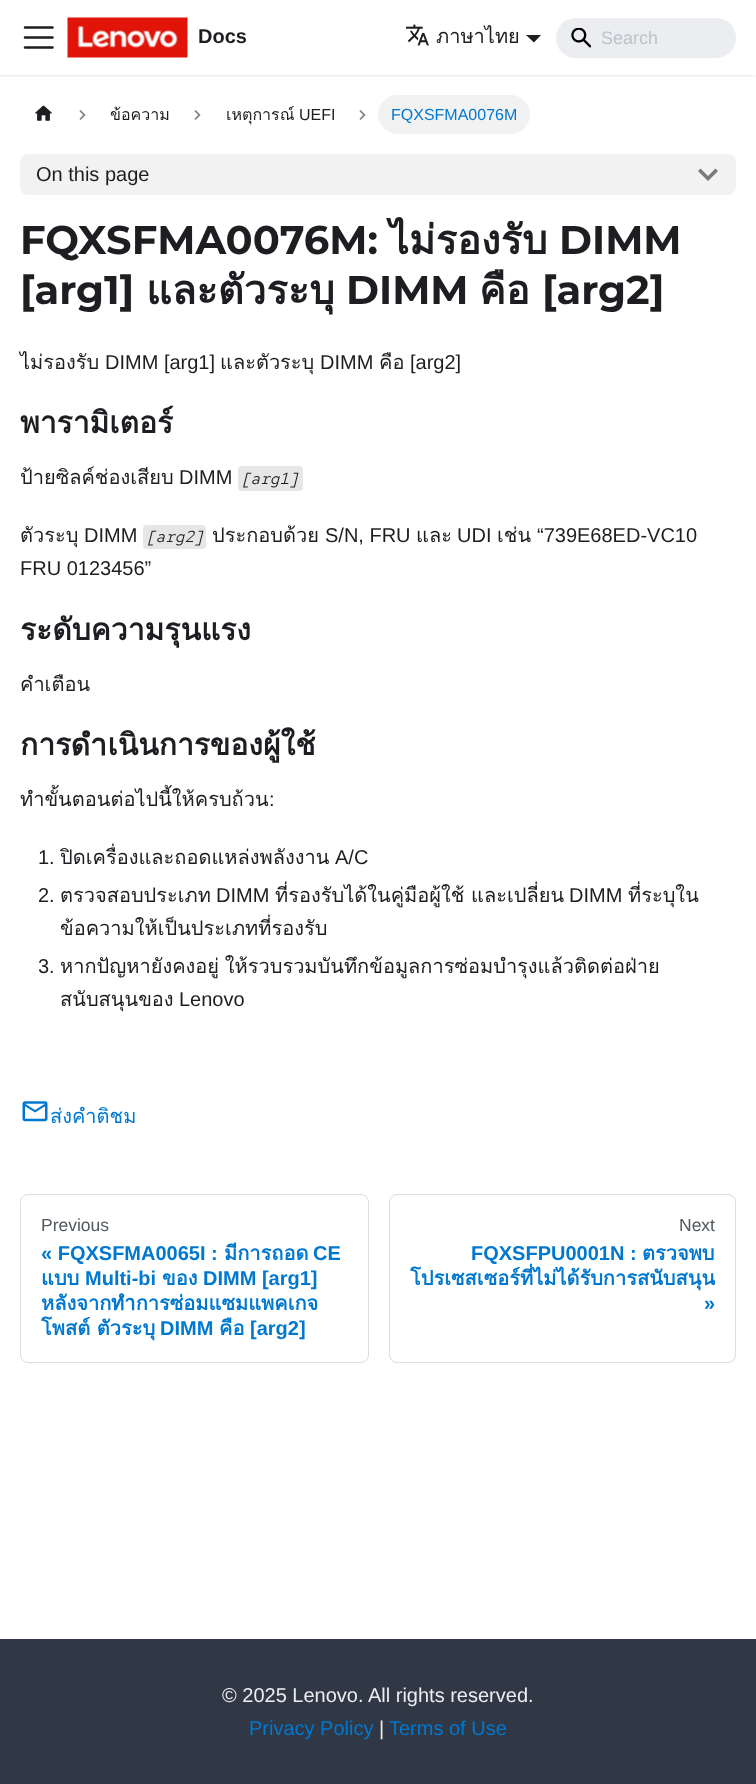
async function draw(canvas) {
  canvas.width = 756
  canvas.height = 1784
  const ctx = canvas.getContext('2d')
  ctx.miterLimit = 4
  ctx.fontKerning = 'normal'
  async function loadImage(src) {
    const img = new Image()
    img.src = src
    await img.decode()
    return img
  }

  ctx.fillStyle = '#fff'
  ctx.fillRect(0, 0, 756, 1784)
  ctx.save()
  ctx.beginPath()
  ctx.rect(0, 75, 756, 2)
  ctx.clip()
  ctx.fillStyle = '#0000001a'
  ctx.filter = 'blur(1px)'
  ctx.beginPath()
  ctx.rect(0, 1, 756, 75)
  ctx.fill()
  ctx.filter = 'none'
  ctx.restore()
  ctx.beginPath()
  ctx.moveTo(25, 27.5)
  ctx.lineTo(52.5, 27.5)
  ctx.moveTo(25, 37.5)
  ctx.lineTo(52.5, 37.5)
  ctx.moveTo(25, 47.5)
  ctx.lineTo(52.5, 47.5)
  ctx.strokeStyle = '#1c1e21'
  ctx.lineWidth = 2.5
  ctx.lineCap = 'round'
  ctx.stroke()
  ctx.drawImage(await loadImage('image0.png'), 67, 17, 121, 41)
  ctx.font = 'bold 20px Liberation Sans'
  ctx.fillStyle = '#1c1e21'
  ctx.fillText('Docs', 198, 43)
  ctx.drawImage(await loadImage('image1.png'), 406, 24, 23, 22)
  ctx.font = '20px Loma'
  ctx.fillText('ภาษาไทย', 436, 43)
  ctx.beginPath()
  ctx.moveTo(526, 35)
  ctx.lineTo(541, 35)
  ctx.lineTo(534, 42.5)
  ctx.closePath()
  ctx.fill()
  ctx.fillStyle = '#ebedf0'
  ctx.beginPath()
  ctx.roundRect(556, 18, 180, 40, 20)
  ctx.fill()
  ctx.drawImage(await loadImage('image2.png'), 571, 28, 20, 20)
  ctx.font = '18px Liberation Sans'
  ctx.fillStyle = '#bec3c9'
  ctx.fillText('Search', 601, 44)
  ctx.drawImage(await loadImage('image3.png'), 35, 105, 17, 16)
  ctx.drawImage(await loadImage('image4.png'), 79, 110, 7, 10)
  ctx.font = '16px Loma'
  ctx.fillStyle = '#1c1e21'
  ctx.fillText('ข้อความ', 110, 120)
  ctx.drawImage(await loadImage('image4.png'), 194, 110, 7, 10)
  ctx.fillText('เหตุการณ์', 226, 120)
  ctx.font = '16px Liberation Sans'
  ctx.fillText('UEFI', 299, 120)
  ctx.drawImage(await loadImage('image4.png'), 359, 110, 7, 10)
  ctx.fillStyle = '#f2f2f2'
  ctx.beginPath()
  ctx.roundRect(378, 95, 152, 39, 19.5)
  ctx.fill()
  ctx.fillStyle = '#0078d0'
  ctx.fillText('FQXSFMA0076M', 391, 120)
  ctx.fillStyle = '#f2f2f2'
  ctx.beginPath()
  ctx.roundRect(20, 154, 716, 41, 8)
  ctx.fill()
  ctx.font = '20px Liberation Sans'
  ctx.fillStyle = '#1c1e21'
  ctx.fillText('On this page', 36, 181)
  ctx.fillStyle = '#797979'
  ctx.beginPath()
  ctx.moveTo(715.5, 168.5)
  ctx.lineTo(708, 176)
  ctx.lineTo(700.5, 168.5)
  ctx.lineTo(698, 171)
  ctx.lineTo(708, 181)
  ctx.lineTo(718, 171)
  ctx.closePath()
  ctx.fill()
  ctx.font = 'bold 40px Montserrat'
  ctx.fillStyle = '#1c1e21'
  ctx.fillText('FQXSFMA0076M:', 20, 254)
  ctx.font = 'bold 40px Loma'
  ctx.fillText('ไม่รองรับ', 389, 254)
  ctx.font = 'bold 40px Montserrat'
  ctx.fillText('DIMM', 559, 254)
  ctx.fillText('[arg1]', 20, 304)
  ctx.font = 'bold 40px Loma'
  ctx.fillText('และตัวระบุ', 146, 304)
  ctx.font = 'bold 40px Montserrat'
  ctx.fillText('DIMM', 346, 304)
  ctx.font = 'bold 40px Loma'
  ctx.fillText('คือ', 479, 304)
  ctx.font = 'bold 40px Montserrat'
  ctx.fillText('[arg2]', 542, 304)
  ctx.font = '20px Loma'
  ctx.fillText('ไม่รองรับ', 20, 369)
  ctx.font = '20px Liberation Sans'
  ctx.fillText('DIMM [arg1]', 105, 369)
  ctx.font = '20px Loma'
  ctx.fillText('และตัวระบุ', 220, 369)
  ctx.font = '20px Liberation Sans'
  ctx.fillText('DIMM', 320, 369)
  ctx.font = '20px Loma'
  ctx.fillText('คือ', 379, 369)
  ctx.font = '20px Liberation Sans'
  ctx.fillText('[arg2]', 410, 369)
  ctx.font = 'bold 30px Loma'
  ctx.fillText('พารามิเตอร์', 20, 433)
  ctx.font = '20px Loma'
  ctx.fillText('ป้ายซิลค์ช่องเสียบ', 20, 484)
  ctx.font = '20px Liberation Sans'
  ctx.fillText('DIMM', 179, 484)
  ctx.fillStyle = '#e6e6e6'
  ctx.beginPath()
  ctx.roundRect(238, 466, 65, 25, 4)
  ctx.fill()
  ctx.font = 'italic 16px Red Hat Mono'
  ctx.fillStyle = '#1c1e21'
  ctx.fillText('[arg1]', 241, 484)
  ctx.font = '20px Loma'
  ctx.fillText('ตัวระบุ', 20, 542)
  ctx.font = '20px Liberation Sans'
  ctx.fillText('DIMM', 84, 542)
  ctx.fillStyle = '#e6e6e6'
  ctx.beginPath()
  ctx.roundRect(143, 525, 63, 24, 4)
  ctx.fill()
  ctx.font = 'italic 16px Red Hat Mono'
  ctx.fillStyle = '#1c1e21'
  ctx.fillText('[arg2]', 146, 542)
  ctx.font = '20px Loma'
  ctx.fillText('ประกอบด้วย', 212, 542)
  ctx.font = '20px Liberation Sans'
  ctx.fillText('S/N, FRU', 325, 542)
  ctx.font = '20px Loma'
  ctx.fillText('และ', 416, 542)
  ctx.font = '20px Liberation Sans'
  ctx.fillText('UDI', 457, 542)
  ctx.font = '20px Loma'
  ctx.fillText('เช่น', 497, 542)
  ctx.font = '20px Liberation Sans'
  ctx.fillText('“739E68ED-VC10', 537, 542)
  ctx.fillText('FRU 0123456”', 20, 575)
  ctx.font = 'bold 30px Loma'
  ctx.fillText('ระดับความรุนแรง', 20, 640)
  ctx.font = '20px Loma'
  ctx.fillText('คำเตือน', 20, 691)
  ctx.font = 'bold 30px Loma'
  ctx.fillText('การดำเนินการของผู้ใช้', 20, 755)
  ctx.font = '20px Loma'
  ctx.fillText('ทำขั้นตอนต่อไปนี้ให้ครบถ้วน', 20, 806)
  ctx.font = '20px Liberation Sans'
  ctx.fillText(':', 269, 806)
  ctx.fillText('1.', 38, 864)
  ctx.font = '20px Loma'
  ctx.fillText('ปิดเครื่องและถอดแหล่งพลังงาน', 60, 864)
  ctx.font = '20px Liberation Sans'
  ctx.fillText('A/C', 335, 864)
  ctx.fillText('2.', 38, 902)
  ctx.font = '20px Loma'
  ctx.fillText('ตรวจสอบประเภท', 60, 902)
  ctx.font = '20px Liberation Sans'
  ctx.fillText('DIMM', 216, 902)
  ctx.font = '20px Loma'
  ctx.fillText('ที่รองรับได้ในคู่มือผู้ใช้ และเปลี่ยน', 275, 902)
  ctx.font = '20px Liberation Sans'
  ctx.fillText('DIMM', 569, 902)
  ctx.font = '20px Loma'
  ctx.fillText('ที่ระบุใน', 628, 902)
  ctx.fillText('ข้อความให้เป็นประเภทที่รองรับ', 60, 935)
  ctx.font = '20px Liberation Sans'
  ctx.fillText('3.', 38, 973)
  ctx.wordSpacing = '-1px'
  ctx.font = '20px Loma'
  ctx.fillText('หากปัญหายังคงอยู่ ให้รวบรวมบันทึกข้อมูลการซ่อมบำรุงแล้วติดต่อฝ่าย', 60, 973)
  ctx.wordSpacing = '0px'
  ctx.fillText('สนับสนุนของ', 60, 1006)
  ctx.font = '20px Liberation Sans'
  ctx.fillText('Lenovo', 179, 1006)
  ctx.font = '20px Loma'
  ctx.fillStyle = '#0078d0'
  ctx.fillText('ส่งคำติชม', 50, 1123)
  ctx.drawImage(await loadImage('image5.png'), 22, 1101, 26, 21)
  ctx.beginPath()
  ctx.roundRect(20.5, 1194.5, 348, 168, 7.5)
  ctx.strokeStyle = '#dadde1'
  ctx.lineWidth = 1
  ctx.stroke()
  ctx.font = '17.5px Liberation Sans'
  ctx.fillStyle = '#525860'
  ctx.fillText('Previous', 41, 1231)
  ctx.font = 'bold 20px Liberation Sans'
  ctx.fillStyle = '#0078d0'
  ctx.fillText('« FQXSFMA0065I :', 41, 1260)
  ctx.font = 'bold 20px Loma'
  ctx.fillText('มีการถอด', 224, 1260)
  ctx.font = 'bold 20px Liberation Sans'
  ctx.fillText('CE', 313, 1260)
  ctx.font = 'bold 20px Loma'
  ctx.fillText('แบบ', 41, 1285)
  ctx.font = 'bold 20px Liberation Sans'
  ctx.fillText('Multi-bi', 85, 1285)
  ctx.font = 'bold 20px Loma'
  ctx.fillText('ของ', 162, 1285)
  ctx.font = 'bold 20px Liberation Sans'
  ctx.fillText('DIMM [arg1]', 203, 1285)
  ctx.font = 'bold 20px Loma'
  ctx.fillText('หลังจากทำการซ่อมแซมแพคเกจ', 41, 1310)
  ctx.fillText('โพสต์ ตัวระบุ', 41, 1335)
  ctx.font = 'bold 20px Liberation Sans'
  ctx.fillText('DIMM', 160, 1335)
  ctx.font = 'bold 20px Loma'
  ctx.fillText('คือ', 219, 1335)
  ctx.font = 'bold 20px Liberation Sans'
  ctx.fillText('[arg2]', 250, 1335)
  ctx.beginPath()
  ctx.roundRect(389.5, 1194.5, 346, 168, 7.5)
  ctx.stroke()
  ctx.font = '17.5px Liberation Sans'
  ctx.fillStyle = '#525860'
  ctx.fillText('Next', 679, 1231)
  ctx.font = 'bold 20px Liberation Sans'
  ctx.fillStyle = '#0078d0'
  ctx.fillText('FQXSFPU0001N :', 471, 1260)
  ctx.font = 'bold 20px Loma'
  ctx.fillText('ตรวจพบ', 642, 1260)
  ctx.fillText('โปรเซสเซอร์ที่ไม่ได้รับการสนับสนุน', 410, 1285)
  ctx.font = 'bold 20px Liberation Sans'
  ctx.fillText('»', 704, 1310)
  ctx.fillStyle = '#303846'
  ctx.fillRect(0, 1639, 756, 145)
  ctx.font = '20px Liberation Sans'
  ctx.fillStyle = '#ebedf0'
  ctx.fillText('© 2025 Lenovo. All rights reserved.', 222, 1702)
  ctx.fillStyle = '#0078d0'
  ctx.fillText('Privacy Policy', 249, 1735)
  ctx.fillStyle = '#ebedf0'
  ctx.fillText('|', 379, 1735)
  ctx.fillStyle = '#0078d0'
  ctx.fillText('Terms of Use', 389, 1735)
}

draw(document.querySelector('canvas'))
